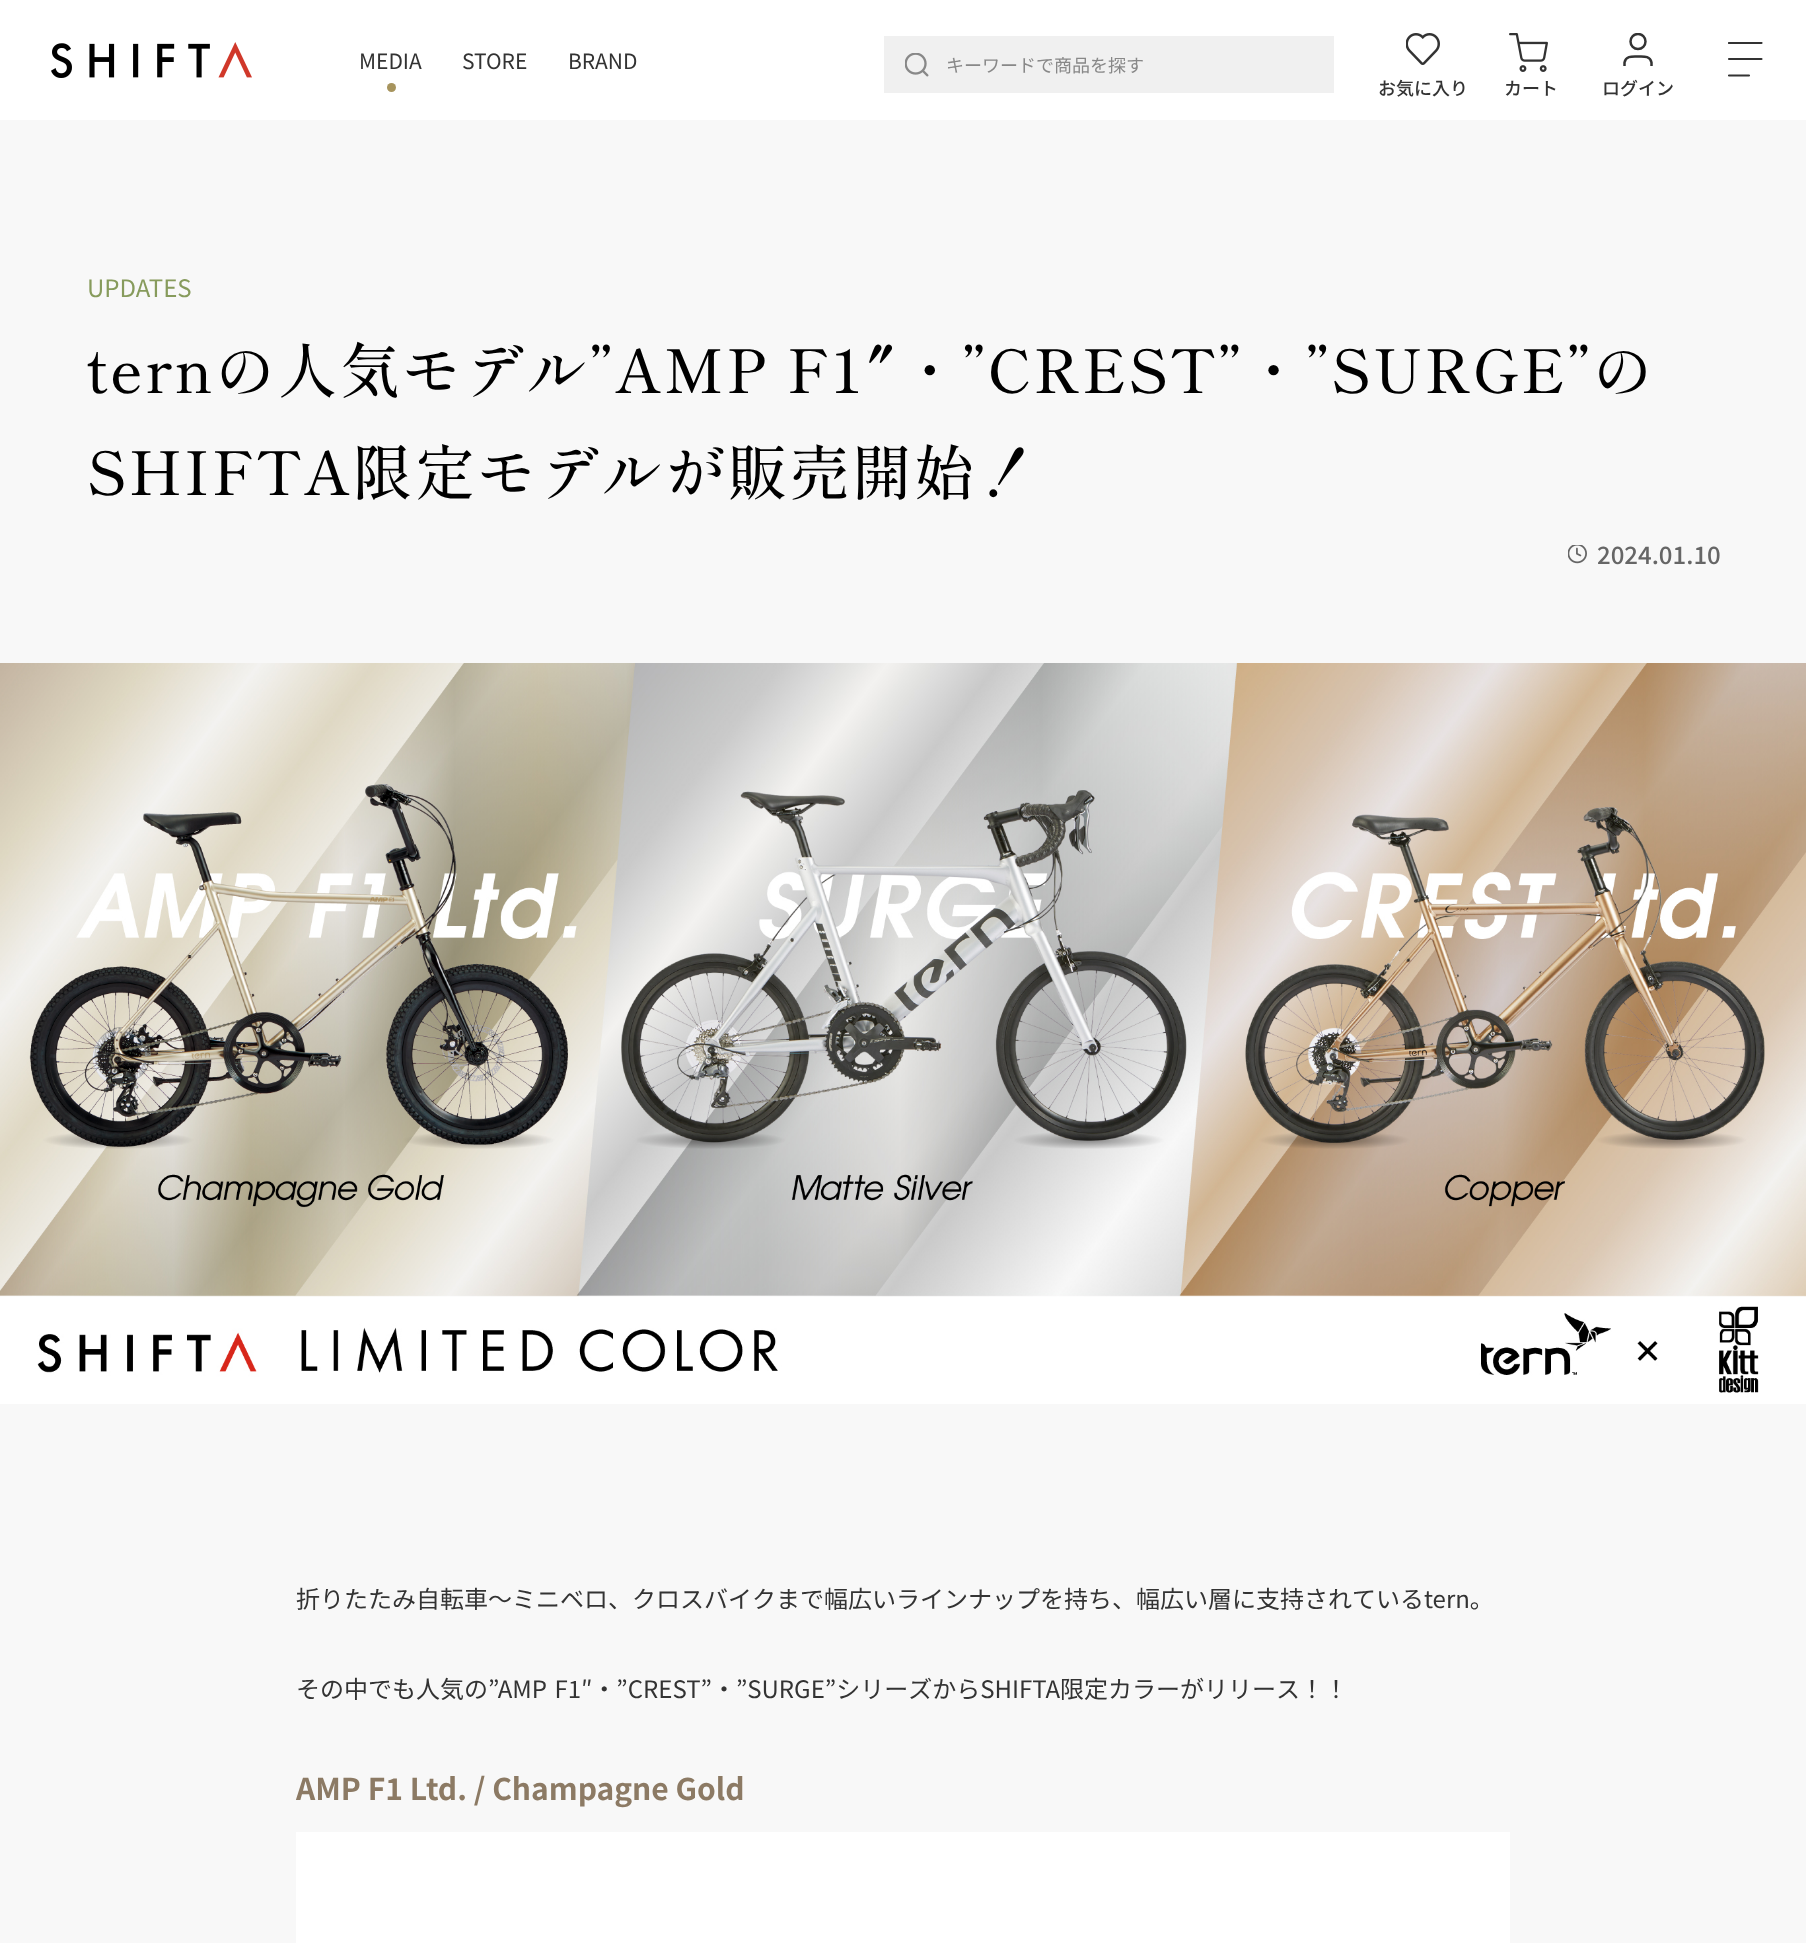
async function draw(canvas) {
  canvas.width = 1806
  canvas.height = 1943
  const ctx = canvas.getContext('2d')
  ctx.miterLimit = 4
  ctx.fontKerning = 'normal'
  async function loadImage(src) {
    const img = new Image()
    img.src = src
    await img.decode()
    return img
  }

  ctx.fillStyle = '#f8f8f8'
  ctx.fillRect(0, 0, 1806, 1943)
  ctx.fillStyle = '#fff'
  ctx.fillRect(0, 0, 1806, 120)
  ctx.drawImage(await loadImage('image0.png'), 51, 42, 201, 36)
  ctx.font = '21px Noto Sans JP'
  ctx.fillStyle = '#333'
  ctx.fillText('MEDIA', 359, 69)
  ctx.fillStyle = '#a7945d'
  ctx.beginPath()
  ctx.arc(391.5, 87.5, 4.5, 0, 2 * Math.PI)
  ctx.fill()
  ctx.fillStyle = '#333'
  ctx.fillText('STORE', 462, 69)
  ctx.fillText('BRAND', 568, 69)
  ctx.fillStyle = '#f0f0f0'
  ctx.fillRect(884, 36, 450, 57)
  ctx.drawImage(await loadImage('image1.png'), 905, 53, 24, 24)
  ctx.font = '18px Noto Sans JP'
  ctx.fillStyle = '#888'
  ctx.fillText('キーワードで商品を探す', 946, 72)
  ctx.drawImage(await loadImage('image2.png'), 1406, 33, 34, 32)
  ctx.font = '500 18px Noto Sans JP'
  ctx.fillStyle = '#333'
  ctx.fillText('お気に入り', 1378, 95)
  ctx.drawImage(await loadImage('image3.png'), 1509, 33, 39, 39)
  ctx.fillText('カート', 1504, 95)
  ctx.save()
  ctx.beginPath()
  ctx.rect(1623, 33, 30, 33)
  ctx.clip()
  ctx.beginPath()
  ctx.moveTo(1651.5, 67.5)
  ctx.lineTo(1651.5, 62.5)
  ctx.bezierCurveTo(1650, 55.5, 1643.5, 56.5, 1638, 56.5)
  ctx.bezierCurveTo(1632.5, 56.5, 1626, 55.5, 1624.5, 62.5)
  ctx.lineTo(1624.5, 67.5)
  ctx.strokeStyle = '#333'
  ctx.lineWidth = 2.5
  ctx.lineCap = 'round'
  ctx.lineJoin = 'round'
  ctx.stroke()
  ctx.beginPath()
  ctx.arc(1638, 41.5, 7.5, 0, 2 * Math.PI)
  ctx.stroke()
  ctx.restore()
  ctx.fillText('ログイン', 1602, 95)
  ctx.save()
  ctx.beginPath()
  ctx.rect(1728, 42, 35, 35)
  ctx.clip()
  ctx.beginPath()
  ctx.moveTo(1729, 43)
  ctx.lineTo(1761.5, 43)
  ctx.strokeStyle = '#333'
  ctx.lineWidth = 2.1
  ctx.lineCap = 'round'
  ctx.stroke()
  ctx.restore()
  ctx.beginPath()
  ctx.moveTo(1729, 75.5)
  ctx.lineTo(1749, 75.5)
  ctx.moveTo(1729, 59)
  ctx.lineTo(1761.5, 59)
  ctx.strokeStyle = '#333'
  ctx.lineWidth = 2.1
  ctx.lineCap = 'round'
  ctx.stroke()
  ctx.font = '24px Noto Sans JP'
  ctx.fillStyle = '#879b5c'
  ctx.fillText('UPDATES', 87, 297)
  ctx.letterSpacing = '2.4px'
  ctx.font = '500 60px Shippori Mincho'
  ctx.fillStyle = '#000'
  ctx.fillText('ternの人気モデル”AMP F1″・”CREST”・”SURGE”の', 87, 393)
  ctx.fillText('SHIFTA限定モデルが販売開始！', 87, 495)
  ctx.drawImage(await loadImage('image4.png'), 1568, 545, 19, 19)
  ctx.letterSpacing = '0px'
  ctx.font = '500 24px Noto Sans JP'
  ctx.fillStyle = '#666'
  ctx.fillText('2024.01.10', 1597, 564)
  ctx.drawImage(await loadImage('image5.png'), 0, 663, 1806, 741)
  ctx.font = '24px Noto Sans JP'
  ctx.fillStyle = '#333'
  ctx.fillText('折りたたみ自転車〜ミニベロ、クロスバイクまで幅広いラインナップを持ち、幅広い層に支持されているtern。', 296, 1608)
  ctx.wordSpacing = '2px'
  ctx.fillText('その中でも人気の”AMP F1″・”CREST”・”SURGE”シリーズからSHIFTA限定カラーがリリース！！', 296, 1698)
  ctx.wordSpacing = '0px'
  ctx.font = 'bold 30px Noto Sans JP'
  ctx.fillStyle = '#8c7a64'
  ctx.fillText('AMP F1 Ltd. / Champagne Gold', 296, 1800)
  ctx.fillStyle = '#fff'
  ctx.fillRect(296, 1832, 1214, 111)
}

draw(document.querySelector('canvas'))
